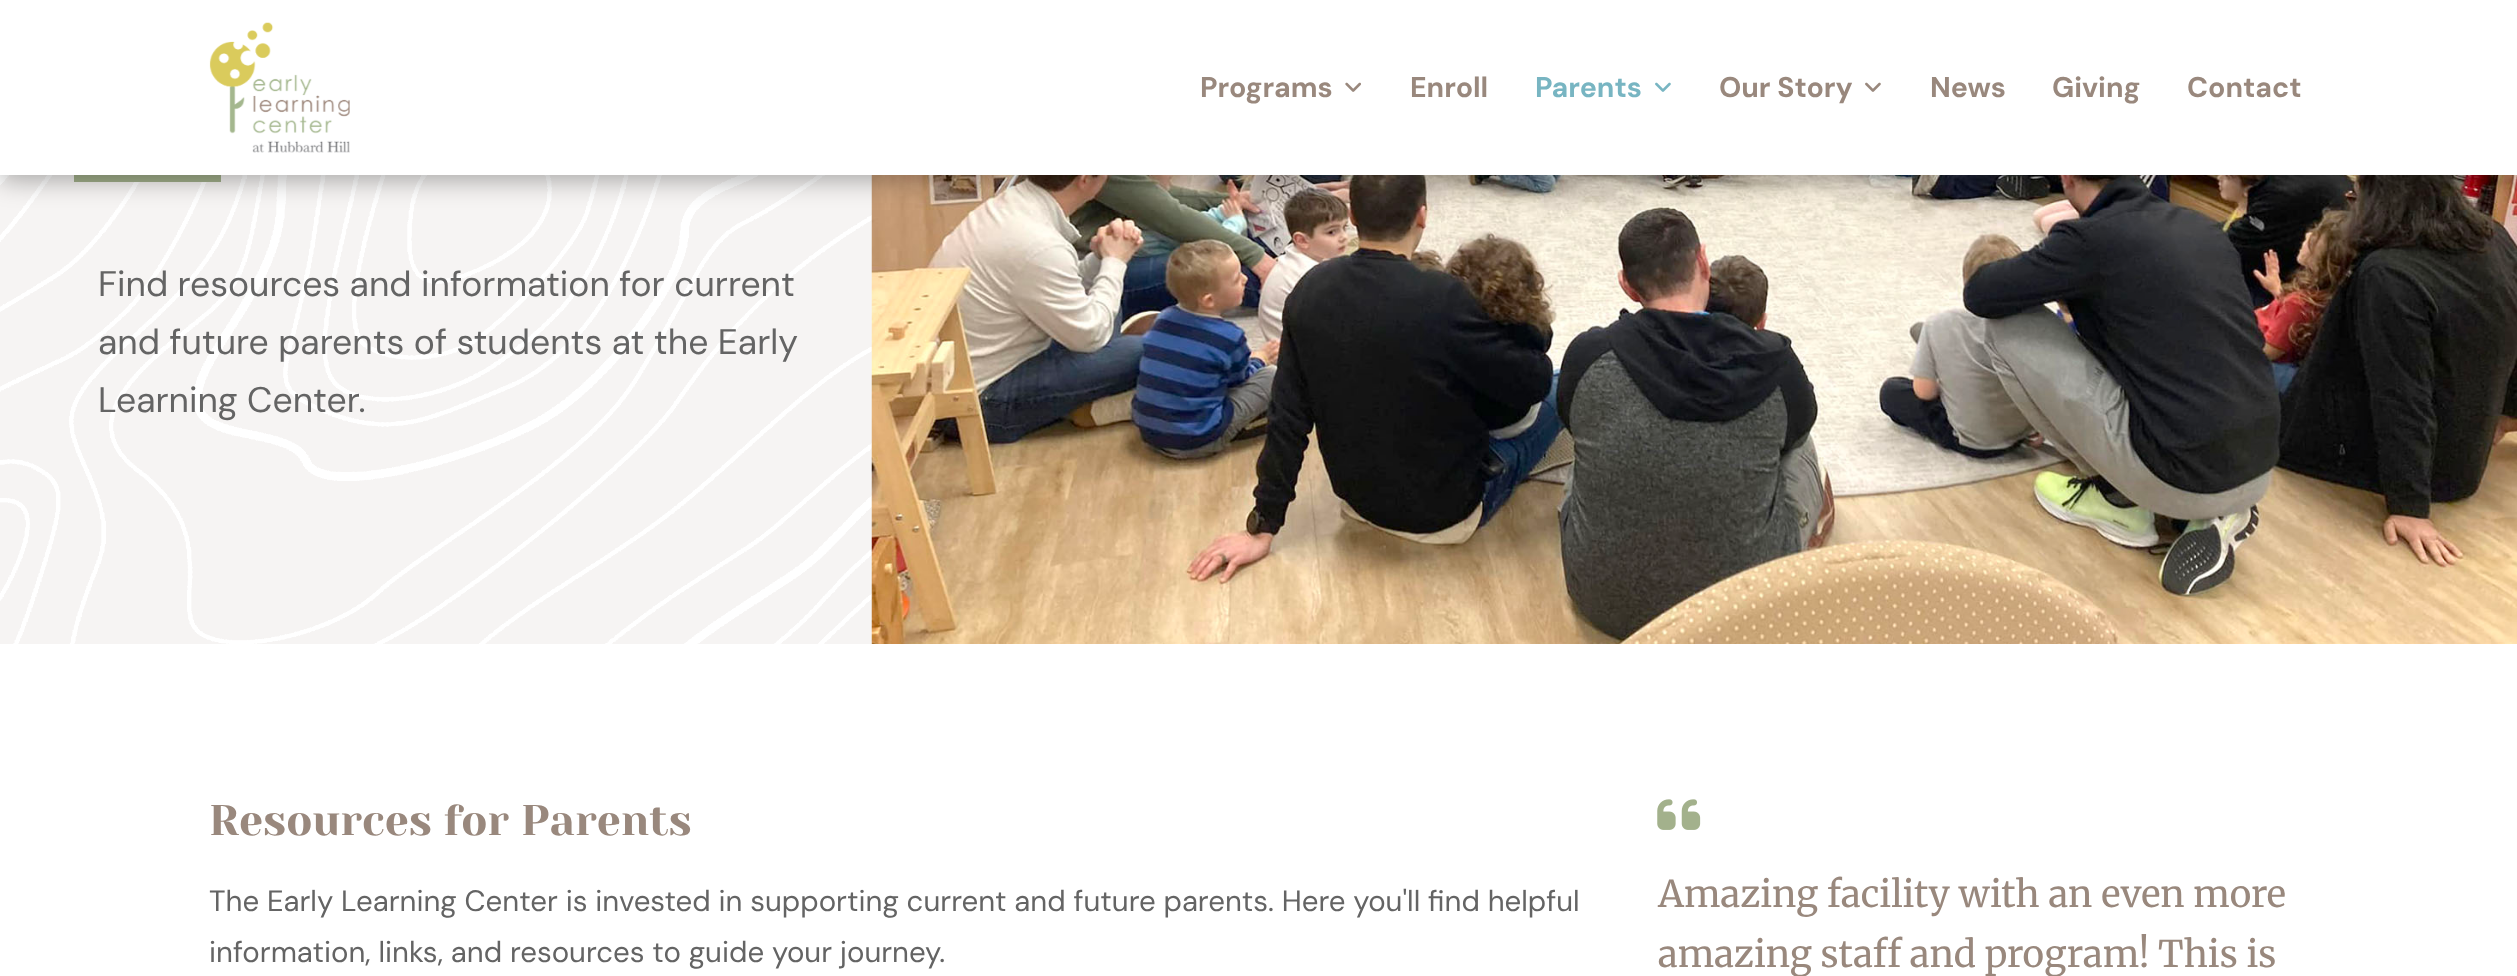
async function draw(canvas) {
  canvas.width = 2517
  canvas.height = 976
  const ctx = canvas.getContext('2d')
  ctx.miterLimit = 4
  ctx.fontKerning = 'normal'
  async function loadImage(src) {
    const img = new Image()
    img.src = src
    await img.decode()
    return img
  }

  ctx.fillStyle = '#fff'
  ctx.fillRect(0, 0, 2517, 976)
  ctx.fillStyle = '#f6f4f3'
  ctx.fillRect(0, 175, 872, 469)
  ctx.drawImage(await loadImage('image4.png'), 0, 175, 872, 469)
  ctx.fillStyle = '#a3b18c'
  ctx.fillRect(74, 175, 147, 7)
  ctx.drawImage(await loadImage('image5.png'), 871, 175, 1646, 469)
  ctx.fillStyle = '#00000054'
  ctx.filter = 'blur(13px)'
  ctx.beginPath()
  ctx.rect(0, 5, 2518, 175)
  ctx.fill()
  ctx.filter = 'none'
  ctx.fillStyle = '#fff'
  ctx.fillRect(0, 0, 2517, 175)
  ctx.drawImage(await loadImage('image0.png'), 209, 22, 141, 131)
  ctx.font = 'bold 28.5px DM Sans'
  ctx.fillStyle = '#99887d'
  ctx.fillText('Programs', 1200, 97)
  ctx.drawImage(await loadImage('image1.png'), 1345, 82, 16, 10)
  ctx.fillText('Enroll', 1410, 97)
  ctx.fillStyle = '#78b5c2'
  ctx.fillText('Parents', 1535, 97)
  ctx.drawImage(await loadImage('image2.png'), 1655, 82, 16, 10)
  ctx.fillStyle = '#99887d'
  ctx.fillText('Our Story', 1719, 97)
  ctx.drawImage(await loadImage('image3.png'), 1865, 82, 16, 10)
  ctx.fillText('News', 1930, 97)
  ctx.fillText('Giving', 2052, 97)
  ctx.fillText('Contact', 2187, 97)
  ctx.font = '35.5px DM Sans'
  ctx.fillStyle = '#646464'
  ctx.fillText('Find resources and information for current', 98, 296)
  ctx.fillText('and future parents of students at the Early', 98, 354)
  ctx.fillText('Learning Center.', 98, 412)
  ctx.font = '42.9px Yeseva One'
  ctx.fillStyle = '#99887d'
  ctx.fillText('Resources for Parents', 209, 835)
  ctx.font = '29.4px DM Sans'
  ctx.fillStyle = '#646464'
  ctx.fillText('The Early Learning Center is invested in supporting current and future parents. Here you\'ll find helpful', 209, 911)
  ctx.fillText('information, links, and resources to guide your journey.', 209, 962)
  ctx.drawImage(await loadImage('image6.png'), 1657, 799, 44, 31)
  ctx.font = '36.75px Merriweather'
  ctx.fillStyle = '#99887d'
  ctx.fillText('Amazing facility with an even more', 1658, 907)
  ctx.fillText('amazing staff and program! This is', 1658, 967)
}

draw(document.querySelector('canvas'))
